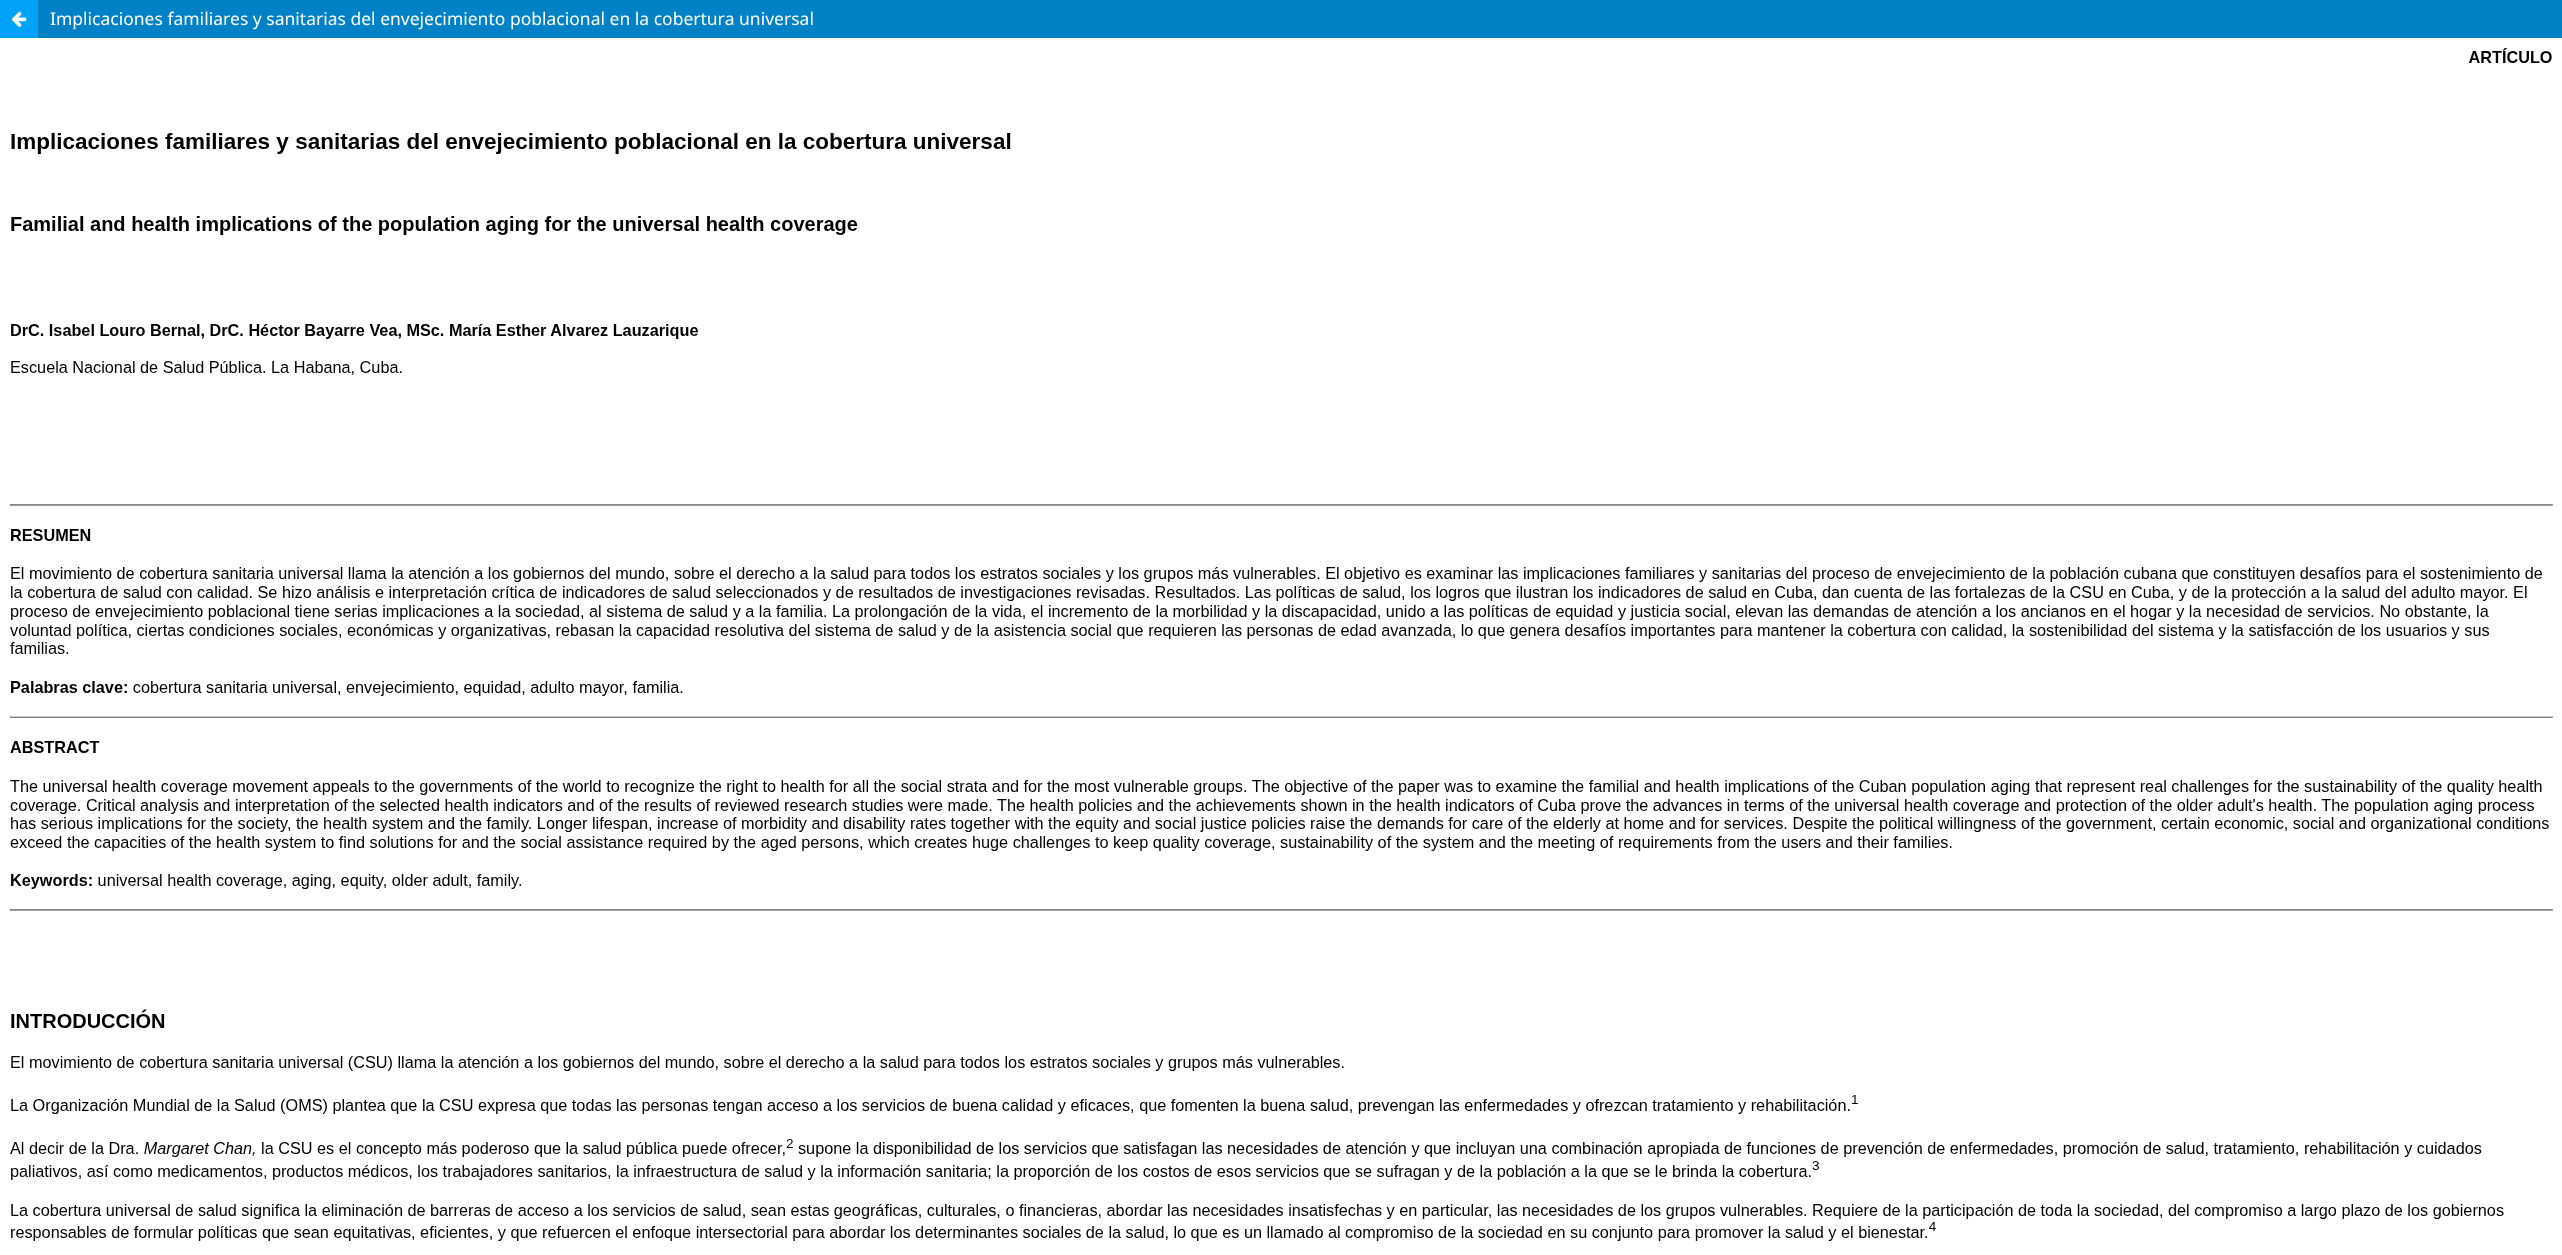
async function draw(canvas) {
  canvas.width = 2562
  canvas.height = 1255
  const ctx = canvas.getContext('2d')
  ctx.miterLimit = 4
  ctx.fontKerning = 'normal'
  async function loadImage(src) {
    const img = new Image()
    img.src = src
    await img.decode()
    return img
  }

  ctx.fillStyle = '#fff'
  ctx.fillRect(0, 0, 2562, 1255)
  ctx.fillStyle = '#0182c6'
  ctx.fillRect(38, 0, 2524, 38)
  ctx.fillStyle = '#01a3f9'
  ctx.fillRect(0, 0, 38, 38)
  ctx.drawImage(await loadImage('image0.png'), 11, 11, 16, 16)
  ctx.font = '17.5px Noto Sans'
  ctx.fillStyle = '#fff'
  ctx.fillText('Implicaciones familiares y sanitarias del envejecimiento poblacional en la cobertura universal', 50, 25)
  ctx.drawImage(await loadImage('image1.png'), 10, 48, 2543, 1193)
}

draw(document.querySelector('canvas'))
